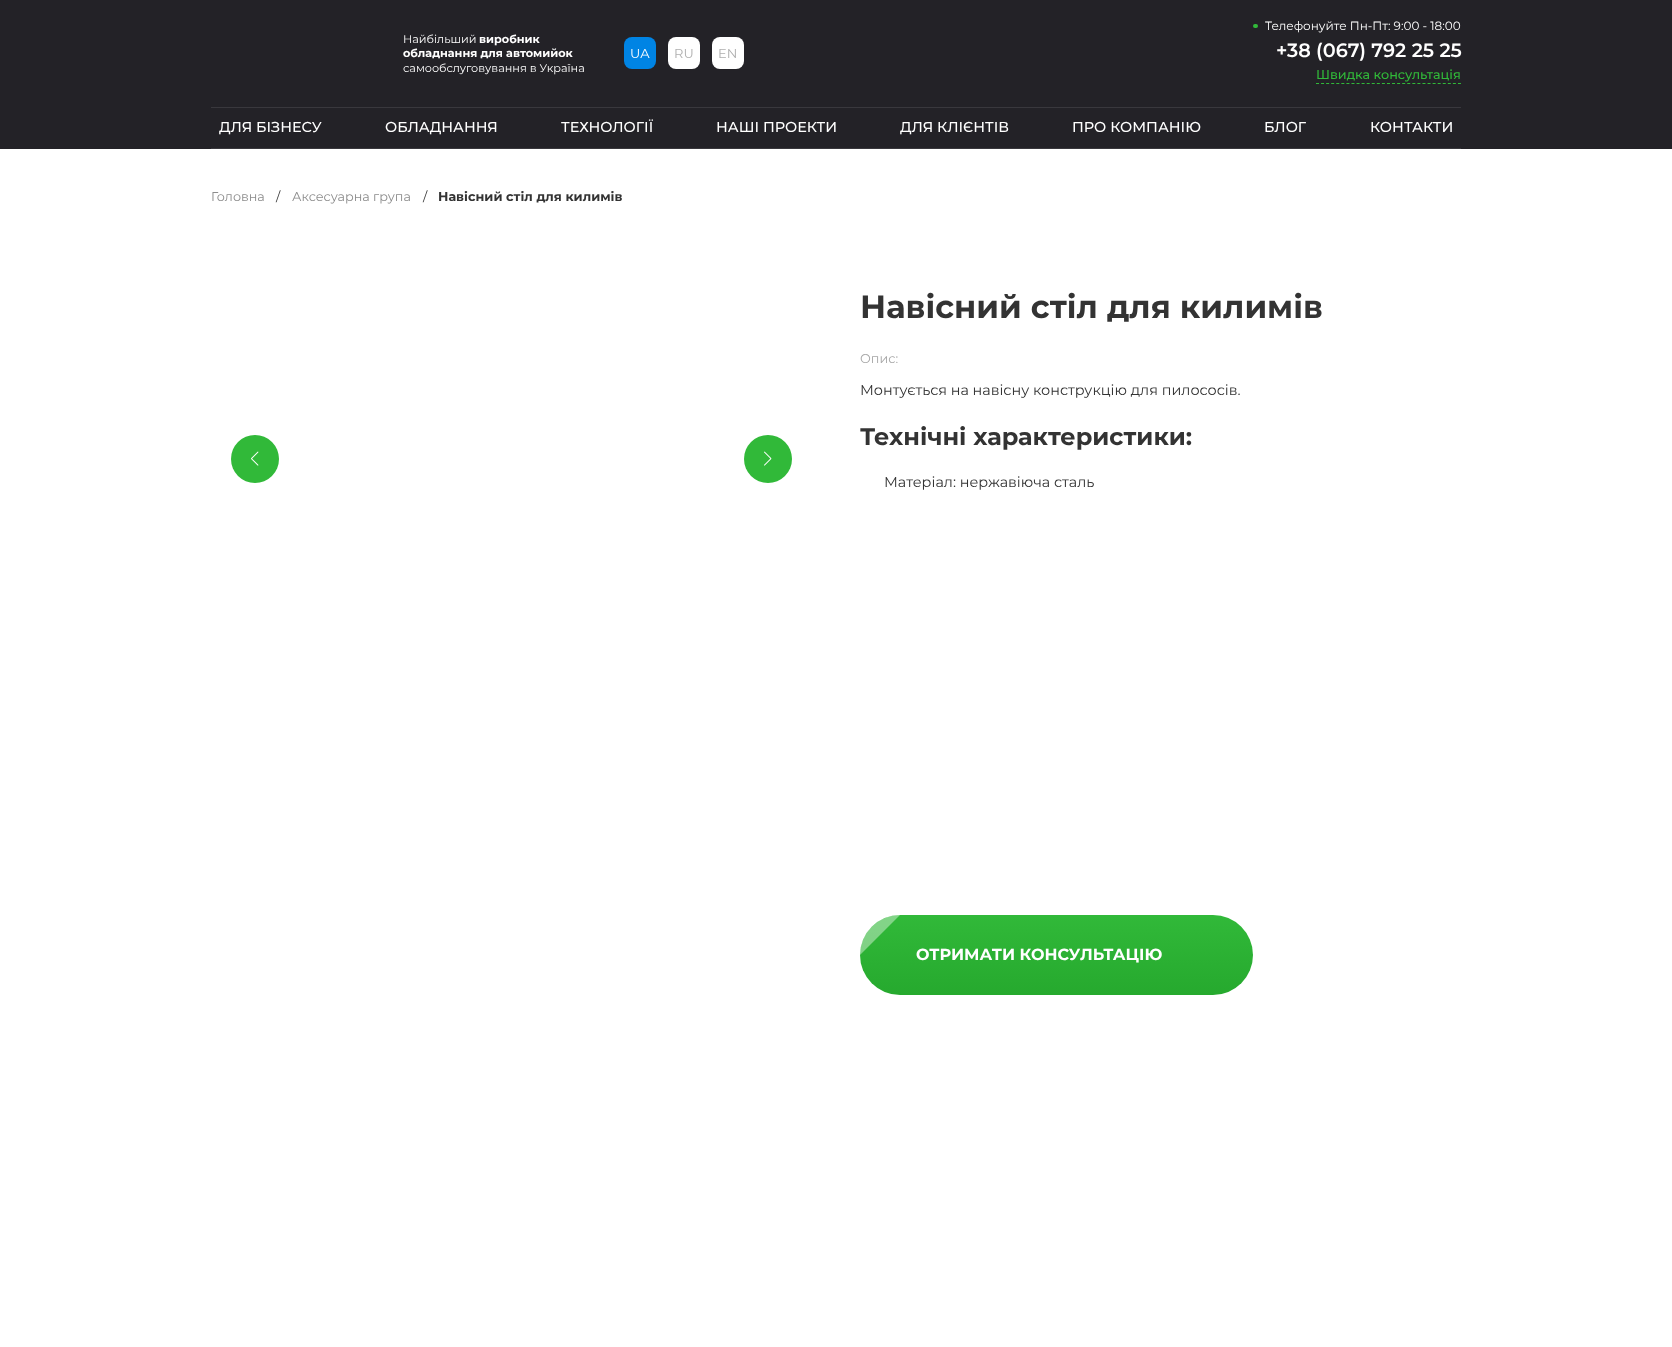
async function draw(canvas) {
  canvas.width = 1672
  canvas.height = 1347
  const ctx = canvas.getContext('2d')
  ctx.miterLimit = 4
  ctx.fontKerning = 'normal'
  async function loadImage(src) {
    const img = new Image()
    img.src = src
    await img.decode()
    return img
  }
  let gradient

  ctx.fillStyle = '#fff'
  ctx.fillRect(0, 0, 1672, 1347)
  ctx.fillStyle = '#232227'
  ctx.fillRect(0, 0, 1672, 149)
  ctx.font = '11.25px Montserrat'
  ctx.fillStyle = '#fff'
  ctx.fillText('Найбільший', 403, 43)
  ctx.font = 'bold 11.25px Montserrat'
  ctx.fillText('виробник', 479, 43)
  ctx.fillText('обладнання для автомийок', 403, 57)
  ctx.font = '11.25px Montserrat'
  ctx.fillText('самообслуговування в Україна', 403, 72)
  ctx.fillStyle = '#0084e4'
  ctx.beginPath()
  ctx.roundRect(624, 37, 32, 32, 8)
  ctx.fill()
  ctx.font = '13px Montserrat'
  ctx.fillStyle = '#fff'
  ctx.fillText('UA', 630, 58)
  ctx.beginPath()
  ctx.roundRect(668, 37, 32, 32, 8)
  ctx.fill()
  ctx.fillStyle = '#aeaeae'
  ctx.fillText('RU', 674, 58)
  ctx.fillStyle = '#fff'
  ctx.beginPath()
  ctx.roundRect(712, 37, 32, 32, 8)
  ctx.fill()
  ctx.fillStyle = '#aeaeae'
  ctx.fillText('EN', 718, 58)
  ctx.fillStyle = '#31b939'
  ctx.beginPath()
  ctx.roundRect(1253, 24, 5, 4, 2)
  ctx.fill()
  ctx.font = '12px Montserrat'
  ctx.fillStyle = '#fff'
  ctx.fillText('Телефонуйте Пн-Пт: 9:00 - 18:00', 1265, 30)
  ctx.font = '600 19.25px Montserrat'
  ctx.fillText('+38 (067) 792 25 25', 1276, 57)
  ctx.beginPath()
  ctx.moveTo(1316, 83.5)
  ctx.lineTo(1461, 83.5)
  ctx.strokeStyle = '#31b939'
  ctx.setLineDash([3, 2.07])
  ctx.stroke()
  ctx.font = '500 12.75px Montserrat'
  ctx.fillStyle = '#31b939'
  ctx.fillText('Швидка консультація', 1316, 79)
  ctx.fillStyle = '#39383d'
  ctx.fillRect(211, 107, 1250, 1)
  ctx.fillRect(211, 148, 1250, 1)
  ctx.font = '500 14.4px Montserrat'
  ctx.fillStyle = '#fff'
  ctx.fillText('ДЛЯ БІЗНЕСУ', 219, 132)
  ctx.fillText('ОБЛАДНАННЯ', 385, 132)
  ctx.fillText('ТЕХНОЛОГІЇ', 561, 132)
  ctx.fillText('НАШІ ПРОЕКТИ', 716, 132)
  ctx.fillText('ДЛЯ КЛІЄНТІВ', 900, 132)
  ctx.fillText('ПРО КОМПАНІЮ', 1072, 132)
  ctx.fillText('БЛОГ', 1264, 132)
  ctx.fillText('КОНТАКТИ', 1370, 132)
  ctx.font = '12.75px Montserrat'
  ctx.fillStyle = '#8c8c8c'
  ctx.fillText('Головна', 211, 201)
  ctx.fillStyle = '#333'
  ctx.fillText('/', 276, 201)
  ctx.fillStyle = '#8c8c8c'
  ctx.fillText('Аксесуарна група', 292, 201)
  ctx.fillStyle = '#333'
  ctx.fillText('/', 423, 201)
  ctx.font = 'bold 12.75px Montserrat'
  ctx.fillText('Навісний стіл для килимів', 438, 201)
  ctx.fillStyle = '#31b939'
  ctx.beginPath()
  ctx.arc(255, 459, 24, 0, 2 * Math.PI)
  ctx.fill()
  ctx.drawImage(await loadImage('image0.png'), 251, 451, 8, 15)
  ctx.beginPath()
  ctx.arc(768, 459, 24, 0, 2 * Math.PI)
  ctx.fill()
  ctx.drawImage(await loadImage('image1.png'), 764, 451, 8, 15)
  ctx.font = 'bold 32px Montserrat'
  ctx.fillStyle = '#333'
  ctx.fillText('Навісний стіл для килимів', 860, 318)
  ctx.font = '12.75px Montserrat'
  ctx.fillStyle = '#a6a6a6'
  ctx.fillText('Опис:', 860, 363)
  ctx.font = '14.4px Montserrat'
  ctx.fillStyle = '#333'
  ctx.fillText('Монтується на навісну конструкцію для пилососів.', 860, 395)
  ctx.font = 'bold 24px Montserrat'
  ctx.fillText('Технічні характеристики:', 860, 445)
  ctx.font = '14.4px Montserrat'
  ctx.fillText('Матеріал: нержавіюча сталь', 884, 487)
  gradient = ctx.createLinearGradient(1057, 915, 1057, 995)
  gradient.addColorStop(0, '#31b939')
  gradient.addColorStop(1, '#26a92e')
  ctx.fillStyle = gradient
  ctx.beginPath()
  ctx.roundRect(860, 915, 393, 80, 40)
  ctx.fill()
  ctx.fillStyle = '#ffffff66'
  ctx.beginPath()
  ctx.moveTo(900, 915)
  ctx.bezierCurveTo(878, 915, 860, 933, 860, 955)
  ctx.closePath()
  ctx.fill()
  ctx.font = 'bold 16px Montserrat'
  ctx.fillStyle = '#fff'
  ctx.fillText('ОТРИМАТИ КОНСУЛЬТАЦІЮ', 916, 960)
}

draw(document.querySelector('canvas'))
